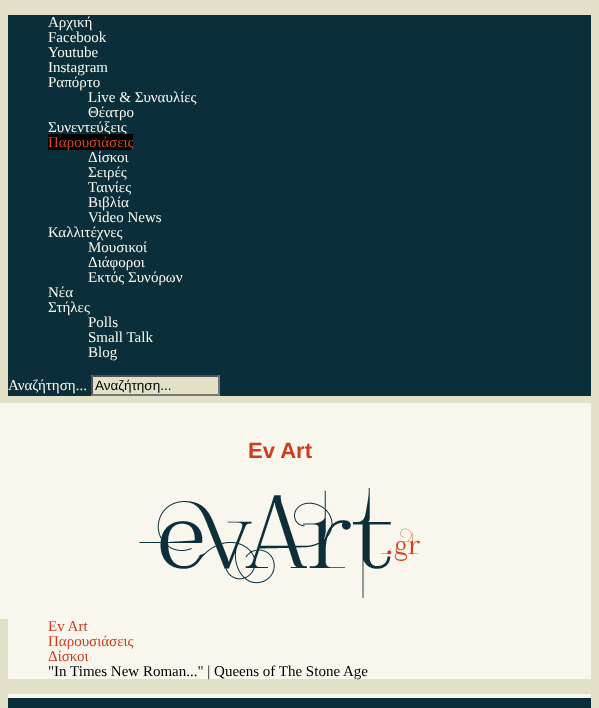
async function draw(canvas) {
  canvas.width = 599
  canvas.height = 708
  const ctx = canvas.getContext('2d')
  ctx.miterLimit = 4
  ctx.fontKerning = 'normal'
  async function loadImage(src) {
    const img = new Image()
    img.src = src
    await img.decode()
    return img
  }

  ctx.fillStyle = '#e2e1c7'
  ctx.fillRect(0, 0, 599, 708)
  ctx.fillStyle = '#0b2f3a'
  ctx.fillRect(8, 15, 583, 381)
  ctx.font = '15px Liberation Serif'
  ctx.fillStyle = '#f9f7ed'
  ctx.fillText('Αρχική', 48, 27)
  ctx.fillText('Facebook', 48, 42)
  ctx.fillText('Youtube', 48, 57)
  ctx.fillText('Instagram', 48, 72)
  ctx.fillText('Ραπόρτο', 48, 87)
  ctx.fillText('Live & Συναυλίες', 88, 102)
  ctx.fillText('Θέατρο', 88, 117)
  ctx.fillText('Συνεντεύξεις', 48, 132)
  ctx.fillStyle = '#000'
  ctx.fillRect(48, 134, 85, 16)
  ctx.fillStyle = '#d74628'
  ctx.fillText('Παρουσιάσεις', 48, 147)
  ctx.fillStyle = '#f9f7ed'
  ctx.fillText('Δίσκοι', 88, 162)
  ctx.fillText('Σειρές', 88, 177)
  ctx.fillText('Ταινίες', 88, 192)
  ctx.fillText('Βιβλία', 88, 207)
  ctx.fillText('Video News', 88, 222)
  ctx.fillText('Καλλιτέχνες', 48, 237)
  ctx.fillText('Μουσικοί', 88, 252)
  ctx.fillText('Διάφοροι', 88, 267)
  ctx.fillText('Εκτός Συνόρων', 88, 282)
  ctx.fillText('Νέα', 48, 297)
  ctx.fillText('Στήλες', 48, 312)
  ctx.fillText('Polls', 88, 327)
  ctx.fillText('Small Talk', 88, 342)
  ctx.fillText('Blog', 88, 357)
  ctx.fillText('Αναζήτηση...', 8, 390)
  ctx.fillStyle = '#e2e1c7'
  ctx.fillRect(91, 375, 129, 21)
  ctx.fillStyle = '#4f4f4f'
  ctx.beginPath()
  ctx.moveTo(91, 375)
  ctx.lineTo(220, 375)
  ctx.lineTo(218, 377)
  ctx.lineTo(93, 377)
  ctx.closePath()
  ctx.fill()
  ctx.fillStyle = '#767676'
  ctx.beginPath()
  ctx.moveTo(220, 375)
  ctx.lineTo(220, 396)
  ctx.lineTo(218, 394)
  ctx.lineTo(218, 377)
  ctx.closePath()
  ctx.fill()
  ctx.beginPath()
  ctx.moveTo(220, 396)
  ctx.lineTo(91, 396)
  ctx.lineTo(93, 394)
  ctx.lineTo(218, 394)
  ctx.closePath()
  ctx.fill()
  ctx.fillStyle = '#4f4f4f'
  ctx.beginPath()
  ctx.moveTo(91, 396)
  ctx.lineTo(91, 375)
  ctx.lineTo(93, 377)
  ctx.lineTo(93, 394)
  ctx.closePath()
  ctx.fill()
  ctx.font = '13.5px Liberation Sans'
  ctx.fillStyle = '#000'
  ctx.fillText('Αναζήτηση...', 95, 390)
  ctx.fillStyle = '#f9f7ed'
  ctx.fillRect(0, 403, 591, 216)
  ctx.font = 'bold 22px Liberation Sans'
  ctx.fillStyle = '#cc3c1f'
  ctx.fillText('Ev Art', 248, 458)
  ctx.drawImage(await loadImage('image0.png'), 139, 488, 281, 110)
  ctx.fillStyle = '#f9f7ed'
  ctx.fillRect(8, 619, 583, 60)
  ctx.font = '15px Liberation Serif'
  ctx.fillStyle = '#cc3c1f'
  ctx.fillText('Ev Art', 48, 631)
  ctx.fillText('Παρουσιάσεις', 48, 646)
  ctx.fillText('Δίσκοι', 48, 661)
  ctx.fillStyle = '#000'
  ctx.fillText('"In Times New Roman..." | Queens of The Stone Age', 48, 676)
  ctx.fillStyle = '#0b2f3a'
  ctx.fillRect(8, 698, 583, 10)
  ctx.fillStyle = '#f9f7ed'
  ctx.fillRect(8, 694, 583, 4)
}

draw(document.querySelector('canvas'))
